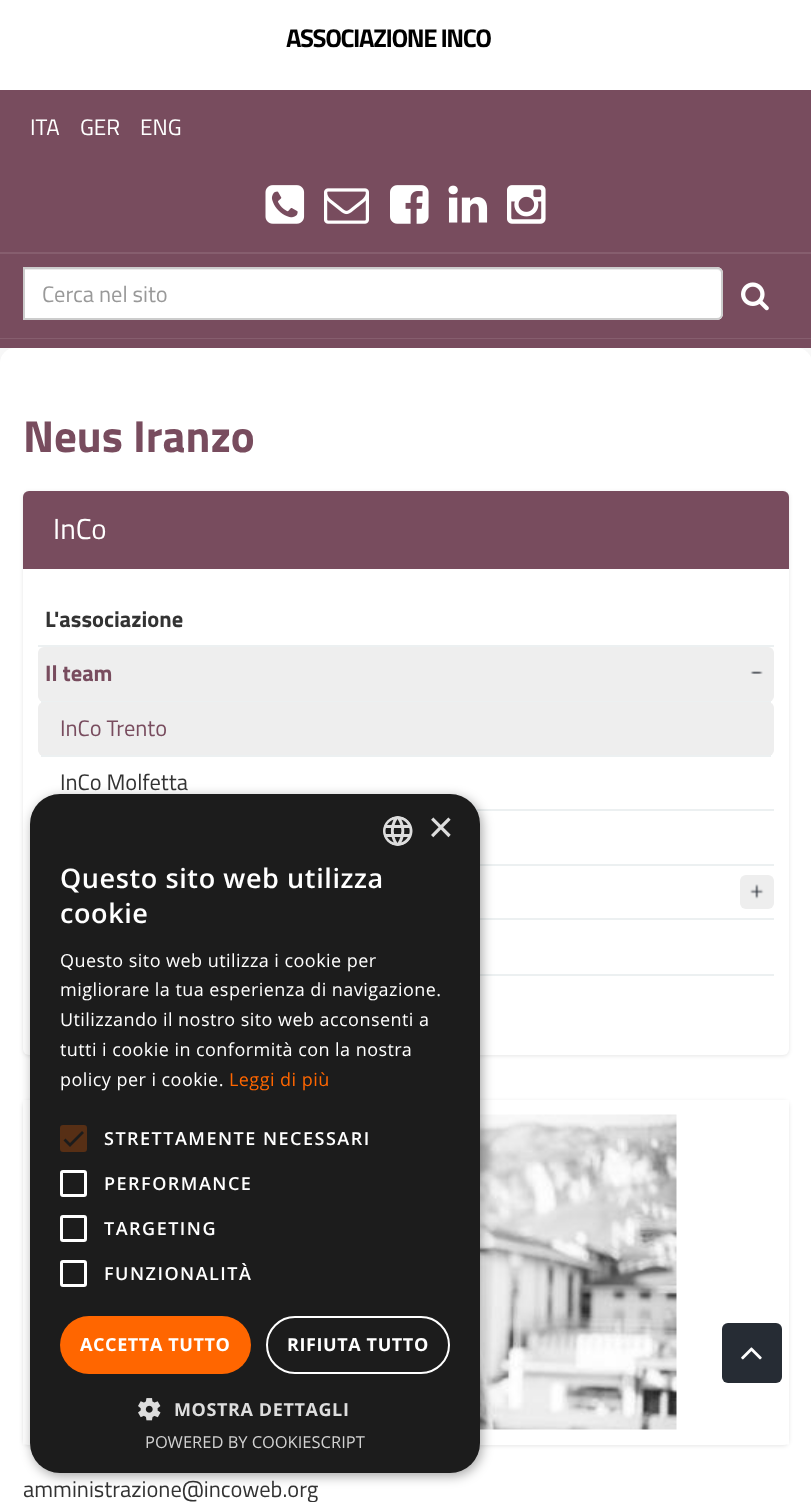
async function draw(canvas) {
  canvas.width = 811
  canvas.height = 1502
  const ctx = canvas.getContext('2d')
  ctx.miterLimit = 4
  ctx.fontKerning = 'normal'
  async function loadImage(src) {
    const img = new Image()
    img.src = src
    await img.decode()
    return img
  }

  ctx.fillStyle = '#fff'
  ctx.fillRect(0, 0, 811, 1502)
  ctx.drawImage(await loadImage('image0.png'), 0, 348, 811, 15)
  ctx.letterSpacing = '-1.4px'
  ctx.font = 'bold 25.75px Titillium Web'
  ctx.fillStyle = '#000'
  ctx.fillText('ASSOCIAZIONE INCO', 286, 47)
  ctx.fillStyle = '#784c5e'
  ctx.fillRect(0, 90, 811, 258)
  ctx.letterSpacing = '0px'
  ctx.font = '22.5px Titillium Web'
  ctx.fillStyle = '#fff'
  ctx.fillText('ITA', 30, 135)
  ctx.fillText('GER', 80, 135)
  ctx.fillText('ENG', 140, 135)
  ctx.drawImage(await loadImage('image1.png'), 265, 185, 40, 39)
  ctx.drawImage(await loadImage('image2.png'), 324, 188, 45, 36)
  ctx.drawImage(await loadImage('image3.png'), 390, 185, 39, 39)
  ctx.drawImage(await loadImage('image4.png'), 448, 185, 40, 38)
  ctx.drawImage(await loadImage('image5.png'), 507, 185, 39, 39)
  ctx.fillStyle = '#865e6e'
  ctx.beginPath()
  ctx.moveTo(0, 338)
  ctx.lineTo(0, 339)
  ctx.lineTo(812, 339)
  ctx.lineTo(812, 252)
  ctx.lineTo(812, 338)
  ctx.closePath()
  ctx.fill()
  ctx.fillRect(0, 252, 811, 2)
  ctx.fillStyle = '#fff'
  ctx.beginPath()
  ctx.roundRect(23, 267, 700, 53, [0, 6, 6, 0])
  ctx.fill()
  ctx.fillStyle = '#ececec'
  ctx.beginPath()
  ctx.moveTo(24, 270)
  ctx.lineTo(717, 270)
  ctx.bezierCurveTo(719, 270, 722, 272, 722, 274)
  ctx.bezierCurveTo(722, 271, 720, 269, 717, 269)
  ctx.lineTo(24, 269)
  ctx.closePath()
  ctx.fill()
  ctx.beginPath()
  ctx.roundRect(24, 268, 698, 51, [0, 5, 5, 0])
  ctx.strokeStyle = '#ccc'
  ctx.lineWidth = 2
  ctx.stroke()
  ctx.fillStyle = '#999'
  ctx.fillText('Cerca nel sito', 42, 302)
  ctx.drawImage(await loadImage('image6.png'), 741, 282, 28, 29)
  ctx.fillStyle = '#fff'
  ctx.beginPath()
  ctx.roundRect(0, 348, 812, 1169, 15)
  ctx.fill()
  ctx.font = 'bold 45px Titillium Web'
  ctx.fillStyle = '#784c5e'
  ctx.fillText('Neus Iranzo', 23, 452)
  ctx.fillStyle = '#0000001a'
  ctx.filter = 'blur(2px)'
  ctx.beginPath()
  ctx.roundRect(23, 492, 766, 564, 6)
  ctx.fill()
  ctx.filter = 'none'
  ctx.fillStyle = '#784c5e'
  ctx.beginPath()
  ctx.roundRect(23, 491, 766, 78, [6, 6, 0, 0])
  ctx.fill()
  ctx.font = '29px Titillium Web'
  ctx.fillStyle = '#fff'
  ctx.fillText('InCo', 53, 539)
  ctx.beginPath()
  ctx.roundRect(23, 569, 766, 486, [0, 0, 6, 6])
  ctx.fill()
  ctx.fillStyle = '#ecf0f1'
  ctx.fillRect(38, 645, 736, 2)
  ctx.font = 'bold 22.5px Titillium Web'
  ctx.fillStyle = '#333'
  ctx.fillText('L\'associazione', 45, 627)
  ctx.fillStyle = '#eee'
  ctx.beginPath()
  ctx.roundRect(38, 647, 736, 55, 6)
  ctx.fill()
  ctx.fillStyle = '#ecf0f1'
  ctx.fillRect(41, 701, 730, 2)
  ctx.fillStyle = '#784c5e'
  ctx.fillText('Il team', 45, 681)
  ctx.drawImage(await loadImage('image7.png'), 750, 671, 13, 3)
  ctx.fillStyle = '#eee'
  ctx.beginPath()
  ctx.roundRect(38, 702, 736, 54, 6)
  ctx.fill()
  ctx.fillStyle = '#ecf0f1'
  ctx.fillRect(41, 755, 730, 2)
  ctx.font = '22.5px Titillium Web'
  ctx.fillStyle = '#784c5e'
  ctx.fillText('InCo Trento', 60, 736)
  ctx.fillStyle = '#ecf0f1'
  ctx.fillRect(476, 809, 298, 2)
  ctx.fillStyle = '#333'
  ctx.fillText('InCo Molfetta', 60, 790)
  ctx.fillStyle = '#ecf0f1'
  ctx.fillRect(480, 864, 294, 2)
  ctx.fillRect(480, 918, 294, 2)
  ctx.fillStyle = '#eee'
  ctx.beginPath()
  ctx.roundRect(740, 875, 34, 34, 6)
  ctx.fill()
  ctx.drawImage(await loadImage('image8.png'), 750, 884, 14, 15)
  ctx.fillStyle = '#ecf0f1'
  ctx.fillRect(480, 974, 294, 2)
  ctx.fillStyle = '#0000001a'
  ctx.filter = 'blur(2px)'
  ctx.beginPath()
  ctx.roundRect(23, 1101, 766, 345, 6)
  ctx.fill()
  ctx.filter = 'none'
  ctx.fillStyle = '#fff'
  ctx.beginPath()
  ctx.roundRect(23, 1100, 766, 345, 6)
  ctx.fill()
  ctx.save()
  ctx.beginPath()
  ctx.rect(23, 1100, 766, 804)
  ctx.clip()
  ctx.beginPath()
  ctx.moveTo(30, 1107)
  ctx.lineTo(781.5, 1107)
  ctx.lineTo(781.5, 1437)
  ctx.lineTo(30, 1437)
  ctx.closePath()
  ctx.strokeStyle = '#fff'
  ctx.lineWidth = 15
  ctx.stroke()
  ctx.restore()
  ctx.drawImage(await loadImage('image9.png'), 480, 1114, 197, 316)
  ctx.fillStyle = '#333'
  ctx.fillText('amministrazione@incoweb.org', 23, 1497)
  ctx.fillStyle = '#00000059'
  ctx.filter = 'blur(6px)'
  ctx.beginPath()
  ctx.roundRect(32, 797, 450, 679, 30)
  ctx.fill()
  ctx.filter = 'none'
  ctx.fillStyle = '#1c1c1c'
  ctx.beginPath()
  ctx.roundRect(30, 794, 450, 679, 30)
  ctx.fill()
  ctx.drawImage(await loadImage('image10.png'), 383, 816, 30, 30)
  ctx.font = '44px Liberation Sans'
  ctx.fillStyle = '#ddd'
  ctx.fillText('×', 428, 842)
  ctx.letterSpacing = '0.6px'
  ctx.font = '600 27px Open Sans'
  ctx.fillStyle = '#fff'
  ctx.fillText('Questo sito web utilizza', 60, 888)
  ctx.fillText('cookie', 60, 923)
  ctx.letterSpacing = '0.45px'
  ctx.font = '18px Open Sans'
  ctx.fillText('Questo sito web utilizza i cookie per', 60, 967)
  ctx.fillText('migliorare la tua esperienza di navigazione.', 60, 996)
  ctx.fillText('Utilizzando il nostro sito web acconsenti a', 60, 1026)
  ctx.fillText('tutti i cookie in conformità con la nostra', 60, 1056)
  ctx.fillText('policy per i cookie.', 60, 1086)
  ctx.fillStyle = '#f60'
  ctx.fillText('Leggi di più', 229, 1086)
  ctx.fillStyle = '#572f15'
  ctx.beginPath()
  ctx.roundRect(60, 1125, 27, 27, 3)
  ctx.fill()
  ctx.beginPath()
  ctx.moveTo(64.5, 1139.5)
  ctx.lineTo(70, 1145)
  ctx.lineTo(83, 1132)
  ctx.strokeStyle = '#1c1c1c'
  ctx.lineWidth = 2.7
  ctx.stroke()
  ctx.letterSpacing = '1.5px'
  ctx.font = '600 18px Open Sans'
  ctx.fillStyle = '#fff'
  ctx.fillText('STRETTAMENTE NECESSARI', 104, 1145)
  ctx.beginPath()
  ctx.roundRect(61.5, 1171.5, 24, 24, 1.5)
  ctx.strokeStyle = '#fff'
  ctx.lineWidth = 3
  ctx.stroke()
  ctx.fillText('PERFORMANCE', 104, 1190)
  ctx.beginPath()
  ctx.roundRect(61.5, 1216.5, 24, 24, 1.5)
  ctx.stroke()
  ctx.fillText('TARGETING', 104, 1235)
  ctx.beginPath()
  ctx.roundRect(61.5, 1261.5, 24, 24, 1.5)
  ctx.stroke()
  ctx.fillText('FUNZIONALITÀ', 104, 1280)
  ctx.fillStyle = '#f60'
  ctx.beginPath()
  ctx.roundRect(60, 1316, 191, 58, 29)
  ctx.fill()
  ctx.letterSpacing = '0.6px'
  ctx.font = 'bold 18px Open Sans'
  ctx.fillStyle = '#fff'
  ctx.fillText('ACCETTA TUTTO', 80, 1351)
  ctx.beginPath()
  ctx.roundRect(267, 1317, 182, 56, 28)
  ctx.lineWidth = 2
  ctx.stroke()
  ctx.fillText('RIFIUTA TUTTO', 287, 1351)
  ctx.drawImage(await loadImage('image11.png'), 138, 1398, 23, 23)
  ctx.fillStyle = '#ddd'
  ctx.fillText('MOSTRA DETTAGLI', 174, 1416)
  ctx.letterSpacing = '0px'
  ctx.font = '16.5px Open Sans'
  ctx.fillStyle = '#d2d2d2'
  ctx.fillText('POWERED BY COOKIESCRIPT', 145, 1448)
  ctx.fillStyle = '#262c34'
  ctx.beginPath()
  ctx.roundRect(722, 1323, 60, 60, 6)
  ctx.fill()
  ctx.drawImage(await loadImage('image12.png'), 741, 1347, 21, 13)
}

draw(document.querySelector('canvas'))
